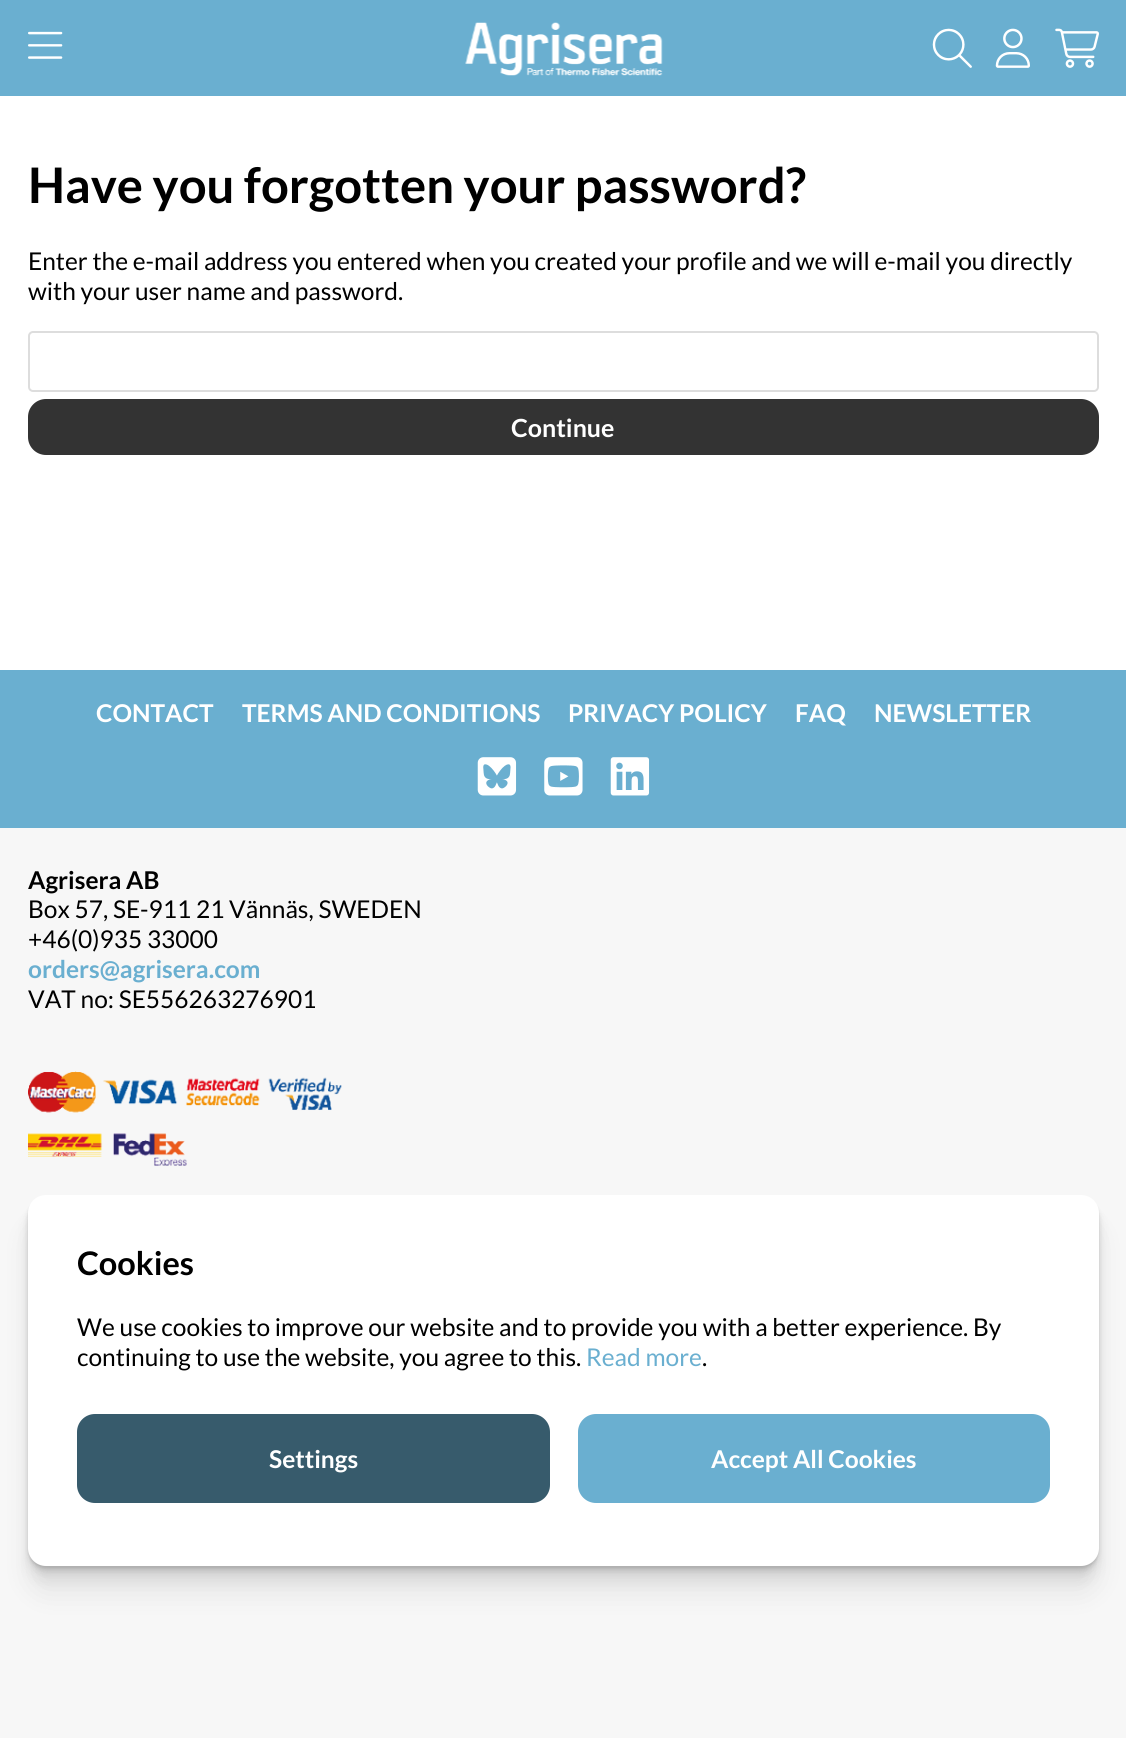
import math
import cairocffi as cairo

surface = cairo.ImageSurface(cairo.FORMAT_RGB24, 1126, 1738)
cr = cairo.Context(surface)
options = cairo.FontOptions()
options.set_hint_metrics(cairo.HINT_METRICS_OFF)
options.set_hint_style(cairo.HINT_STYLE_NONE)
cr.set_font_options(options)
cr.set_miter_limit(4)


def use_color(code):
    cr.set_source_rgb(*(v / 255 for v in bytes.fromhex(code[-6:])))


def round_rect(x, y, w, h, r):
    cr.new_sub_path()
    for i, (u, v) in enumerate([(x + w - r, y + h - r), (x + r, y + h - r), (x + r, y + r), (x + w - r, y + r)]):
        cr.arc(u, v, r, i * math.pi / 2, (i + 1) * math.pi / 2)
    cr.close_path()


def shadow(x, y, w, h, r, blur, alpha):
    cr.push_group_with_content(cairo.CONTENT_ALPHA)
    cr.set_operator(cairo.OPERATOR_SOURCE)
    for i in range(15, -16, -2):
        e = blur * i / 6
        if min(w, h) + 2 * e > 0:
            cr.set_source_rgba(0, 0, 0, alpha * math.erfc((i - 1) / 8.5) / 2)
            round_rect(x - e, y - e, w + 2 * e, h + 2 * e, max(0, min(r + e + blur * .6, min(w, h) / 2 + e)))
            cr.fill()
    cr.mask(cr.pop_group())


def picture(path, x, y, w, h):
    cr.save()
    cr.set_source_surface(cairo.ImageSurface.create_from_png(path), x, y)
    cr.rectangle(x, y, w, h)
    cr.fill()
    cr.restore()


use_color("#ffffff")
cr.paint()
use_color("#6aafd0")
cr.rectangle(0, 0, 1126, 96)
cr.fill()
picture("img1.png", 28, 31, 35, 28)
picture("img2.png", 465, 22, 198, 54)
picture("img3.png", 932, 28, 40, 40)
picture("img4.png", 995, 28, 35, 40)
picture("img5.png", 1055, 28, 44, 40)
cr.select_font_face("Lato", cairo.FONT_SLANT_NORMAL, cairo.FONT_WEIGHT_BOLD)
cr.set_font_size(49)
use_color("#000000")
cr.move_to(28, 203)
cr.show_text("Have you forgotten your password?")
cr.select_font_face("Lato")
cr.set_font_size(24.5)
cr.move_to(28, 270)
cr.show_text("Enter the e-mail address you entered when you created your profile and we will e-mail you directly")
cr.move_to(28, 300)
cr.show_text("with your user name and password.")
round_rect(29, 332, 1069, 59, 4)
use_color("#dddddd")
cr.stroke()
use_color("#333333")
round_rect(28, 399, 1071, 56, 18)
cr.fill()
cr.select_font_face("Lato", cairo.FONT_SLANT_NORMAL, cairo.FONT_WEIGHT_BOLD)
cr.set_font_size(25)
use_color("#ffffff")
cr.move_to(511, 437)
cr.show_text("Continue")
use_color("#f7f7f7")
cr.rectangle(0, 828, 1126, 910)
cr.fill()
use_color("#6aafd0")
cr.rectangle(0, 670, 1126, 158)
cr.fill()
cr.set_font_size(24.5)
use_color("#ffffff")
cr.move_to(96, 722)
cr.show_text("CONTACT")
cr.move_to(242, 722)
cr.show_text("TERMS AND CONDITIONS")
cr.move_to(568, 722)
cr.show_text("PRIVACY POLICY")
cr.move_to(795, 722)
cr.show_text("FAQ")
cr.move_to(874, 722)
cr.show_text("NEWSLETTER")
picture("img6.png", 477, 757, 40, 39)
picture("img7.png", 544, 757, 39, 39)
picture("img8.png", 610, 757, 40, 39)
use_color("#000000")
cr.move_to(28, 889)
cr.show_text("Agrisera AB")
cr.select_font_face("Lato")
cr.move_to(28, 918)
cr.show_text("Box 57, SE-911 21 Vännäs, SWEDEN")
cr.move_to(28, 948)
cr.show_text("+46(0)935 33000")
cr.select_font_face("Lato", cairo.FONT_SLANT_NORMAL, cairo.FONT_WEIGHT_BOLD)
use_color("#6aafd0")
cr.move_to(28, 978)
cr.show_text("orders@agrisera.com")
cr.select_font_face("Lato")
use_color("#000000")
cr.move_to(28, 1008)
cr.show_text("VAT no: SE556263276901")
picture("img9.png", 28, 1071, 314, 95)
use_color("#000000")
shadow(28, 1223, 1071, 371, 18, 14, 0.07)
shadow(28, 1209, 1071, 371, 18, 7, 0.07)
shadow(28, 1202, 1071, 371, 18, 3.5, 0.07)
shadow(28, 1199, 1071, 371, 18, 2, 0.07)
shadow(28, 1197, 1071, 371, 18, 1, 0.07)
use_color("#ffffff")
round_rect(28, 1195, 1071, 371, 18)
cr.fill()
cr.select_font_face("Lato", cairo.FONT_SLANT_NORMAL, cairo.FONT_WEIGHT_BOLD)
cr.set_font_size(32.5)
use_color("#000000")
cr.move_to(77, 1275)
cr.show_text("Cookies")
cr.select_font_face("Lato")
cr.set_font_size(24.5)
cr.move_to(77, 1336)
cr.show_text("We use cookies to improve our website and to provide you with a better experience. By")
cr.move_to(77, 1366)
cr.show_text("continuing to use the website, you agree to this.")
use_color("#6aafd0")
cr.move_to(586, 1366)
cr.show_text("Read more")
use_color("#000000")
cr.move_to(702, 1366)
cr.show_text(".")
use_color("#375b6c")
round_rect(77, 1414, 473, 89, 18)
cr.fill()
cr.select_font_face("Lato", cairo.FONT_SLANT_NORMAL, cairo.FONT_WEIGHT_BOLD)
use_color("#ffffff")
cr.move_to(269, 1468)
cr.show_text("Settings")
use_color("#6aafd0")
round_rect(578, 1414, 472, 89, 18)
cr.fill()
use_color("#ffffff")
cr.move_to(711, 1468)
cr.show_text("Accept All Cookies")
surface.write_to_png("result.png")
